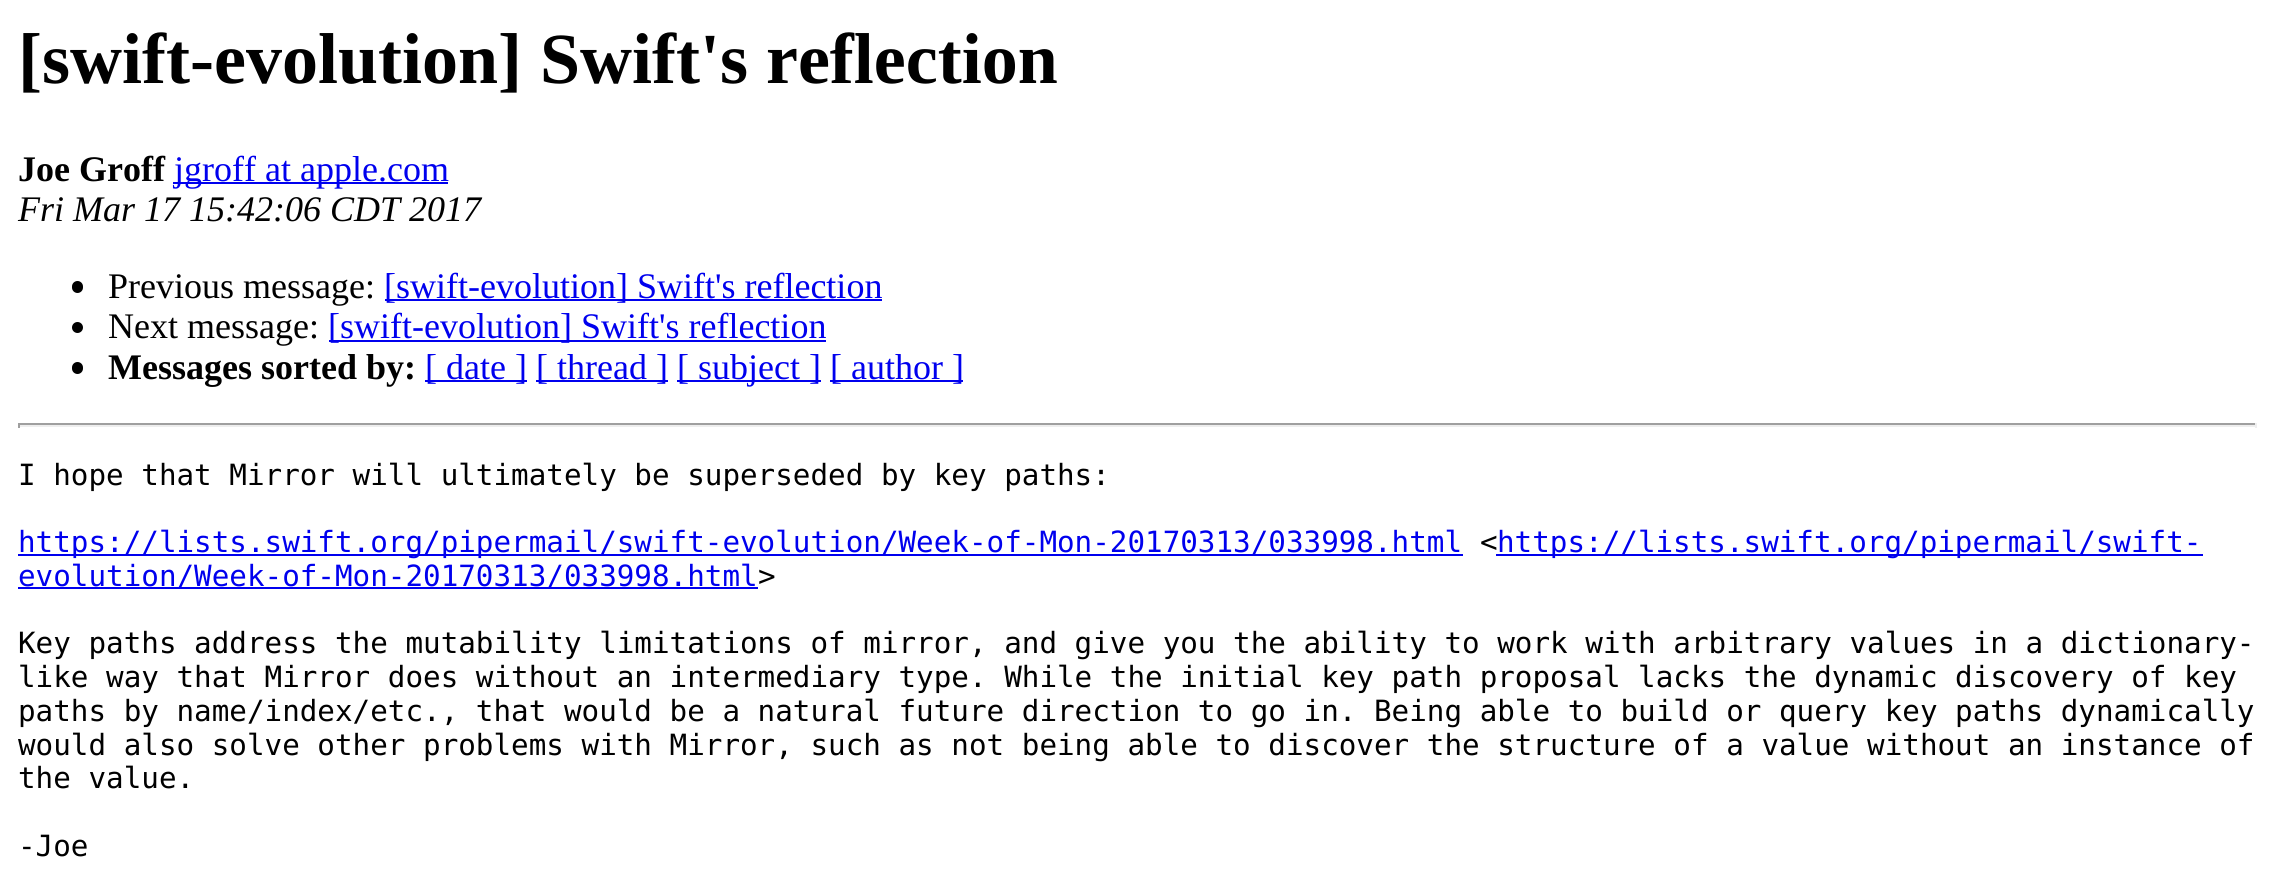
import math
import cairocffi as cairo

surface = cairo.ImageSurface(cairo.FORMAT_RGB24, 2274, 882)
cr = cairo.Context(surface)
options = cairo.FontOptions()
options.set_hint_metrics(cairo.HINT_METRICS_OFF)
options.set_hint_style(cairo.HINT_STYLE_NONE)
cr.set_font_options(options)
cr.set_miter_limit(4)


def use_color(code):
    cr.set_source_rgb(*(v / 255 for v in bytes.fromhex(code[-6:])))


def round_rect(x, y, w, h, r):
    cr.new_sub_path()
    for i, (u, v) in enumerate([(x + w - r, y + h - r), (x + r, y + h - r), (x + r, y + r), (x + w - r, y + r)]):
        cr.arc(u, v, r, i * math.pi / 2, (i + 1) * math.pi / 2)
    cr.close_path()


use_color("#ffffff")
cr.paint()
cr.select_font_face("Liberation Serif", cairo.FONT_SLANT_NORMAL, cairo.FONT_WEIGHT_BOLD)
cr.set_font_size(72)
use_color("#000000")
cr.move_to(18, 83)
cr.show_text("[swift-evolution] Swift's reflection")
cr.set_font_size(36)
cr.move_to(18, 181)
cr.show_text("Joe Groff")
use_color("#0000ee")
cr.rectangle(173, 182, 275, 2)
cr.fill()
cr.select_font_face("Liberation Serif")
cr.move_to(174, 181)
cr.show_text("jgroff at apple.com")
cr.select_font_face("Liberation Serif", cairo.FONT_SLANT_ITALIC)
use_color("#000000")
cr.move_to(18, 221)
cr.show_text("Fri Mar 17 15:42:06 CDT 2017")
round_rect(72, 281, 11, 12, 5.5)
cr.fill()
cr.select_font_face("Liberation Serif")
cr.move_to(108, 298)
cr.show_text("Previous message:")
use_color("#0000ee")
cr.rectangle(385, 299, 497, 2)
cr.fill()
cr.move_to(384, 298)
cr.show_text("[swift-evolution] Swift's reflection")
use_color("#000000")
cr.new_path()
cr.arc(77.5, 327.5, 5.5, 0, 2 * math.pi)
cr.fill()
cr.move_to(108, 338)
cr.show_text("Next message:")
use_color("#0000ee")
cr.rectangle(329, 340, 497, 2)
cr.fill()
cr.move_to(328, 338)
cr.show_text("[swift-evolution] Swift's reflection")
use_color("#000000")
round_rect(72, 362, 11, 12, 5.5)
cr.fill()
cr.select_font_face("Liberation Serif", cairo.FONT_SLANT_NORMAL, cairo.FONT_WEIGHT_BOLD)
cr.move_to(108, 379)
cr.show_text("Messages sorted by:")
use_color("#0000ee")
cr.rectangle(425, 380, 102, 2)
cr.fill()
cr.select_font_face("Liberation Serif")
cr.move_to(425, 379)
cr.show_text("[ date ]")
cr.rectangle(536, 380, 132, 2)
cr.fill()
cr.move_to(536, 379)
cr.show_text("[ thread ]")
cr.rectangle(677, 380, 144, 2)
cr.fill()
cr.move_to(677, 379)
cr.show_text("[ subject ]")
cr.rectangle(830, 380, 133, 2)
cr.fill()
cr.move_to(830, 379)
cr.show_text("[ author ]")
use_color("#9f9f9f")
cr.rectangle(18, 423, 2239, 2)
cr.fill()
use_color("#eeeeee")
cr.rectangle(2255, 423, 2, 5)
cr.fill()
cr.rectangle(18, 425, 2239, 2)
cr.fill()
use_color("#9f9f9f")
cr.rectangle(18, 423, 2, 5)
cr.fill()
cr.select_font_face("DejaVu Sans Mono")
cr.set_font_size(29.25)
use_color("#000000")
cr.move_to(18, 485)
cr.show_text("I hope that Mirror will ultimately be superseded by key paths:")
use_color("#0000ee")
cr.rectangle(18, 554, 1445, 2)
cr.fill()
cr.move_to(18, 552)
cr.show_text("https://lists.swift.org/pipermail/swift-evolution/Week-of-Mon-20170313/033998.html")
use_color("#000000")
cr.move_to(1480, 552)
cr.show_text("<")
use_color("#0000ee")
cr.rectangle(1496, 554, 707, 2)
cr.fill()
cr.move_to(1497, 552)
cr.show_text("https://lists.swift.org/pipermail/swift-")
cr.rectangle(18, 587, 740, 2)
cr.fill()
cr.move_to(18, 586)
cr.show_text("evolution/Week-of-Mon-20170313/033998.html")
use_color("#000000")
cr.move_to(758, 586)
cr.show_text(">")
cr.move_to(18, 653)
cr.show_text("Key paths address the mutability limitations of mirror, and give you the ability to work with arbitrary values in a dictionary-")
cr.move_to(18, 687)
cr.show_text("like way that Mirror does without an intermediary type. While the initial key path proposal lacks the dynamic discovery of key")
cr.move_to(18, 721)
cr.show_text("paths by name/index/etc., that would be a natural future direction to go in. Being able to build or query key paths dynamically")
cr.move_to(18, 755)
cr.show_text("would also solve other problems with Mirror, such as not being able to discover the structure of a value without an instance of")
cr.move_to(18, 788)
cr.show_text("the value.")
cr.move_to(18, 856)
cr.show_text("-Joe")
surface.write_to_png("result.png")
